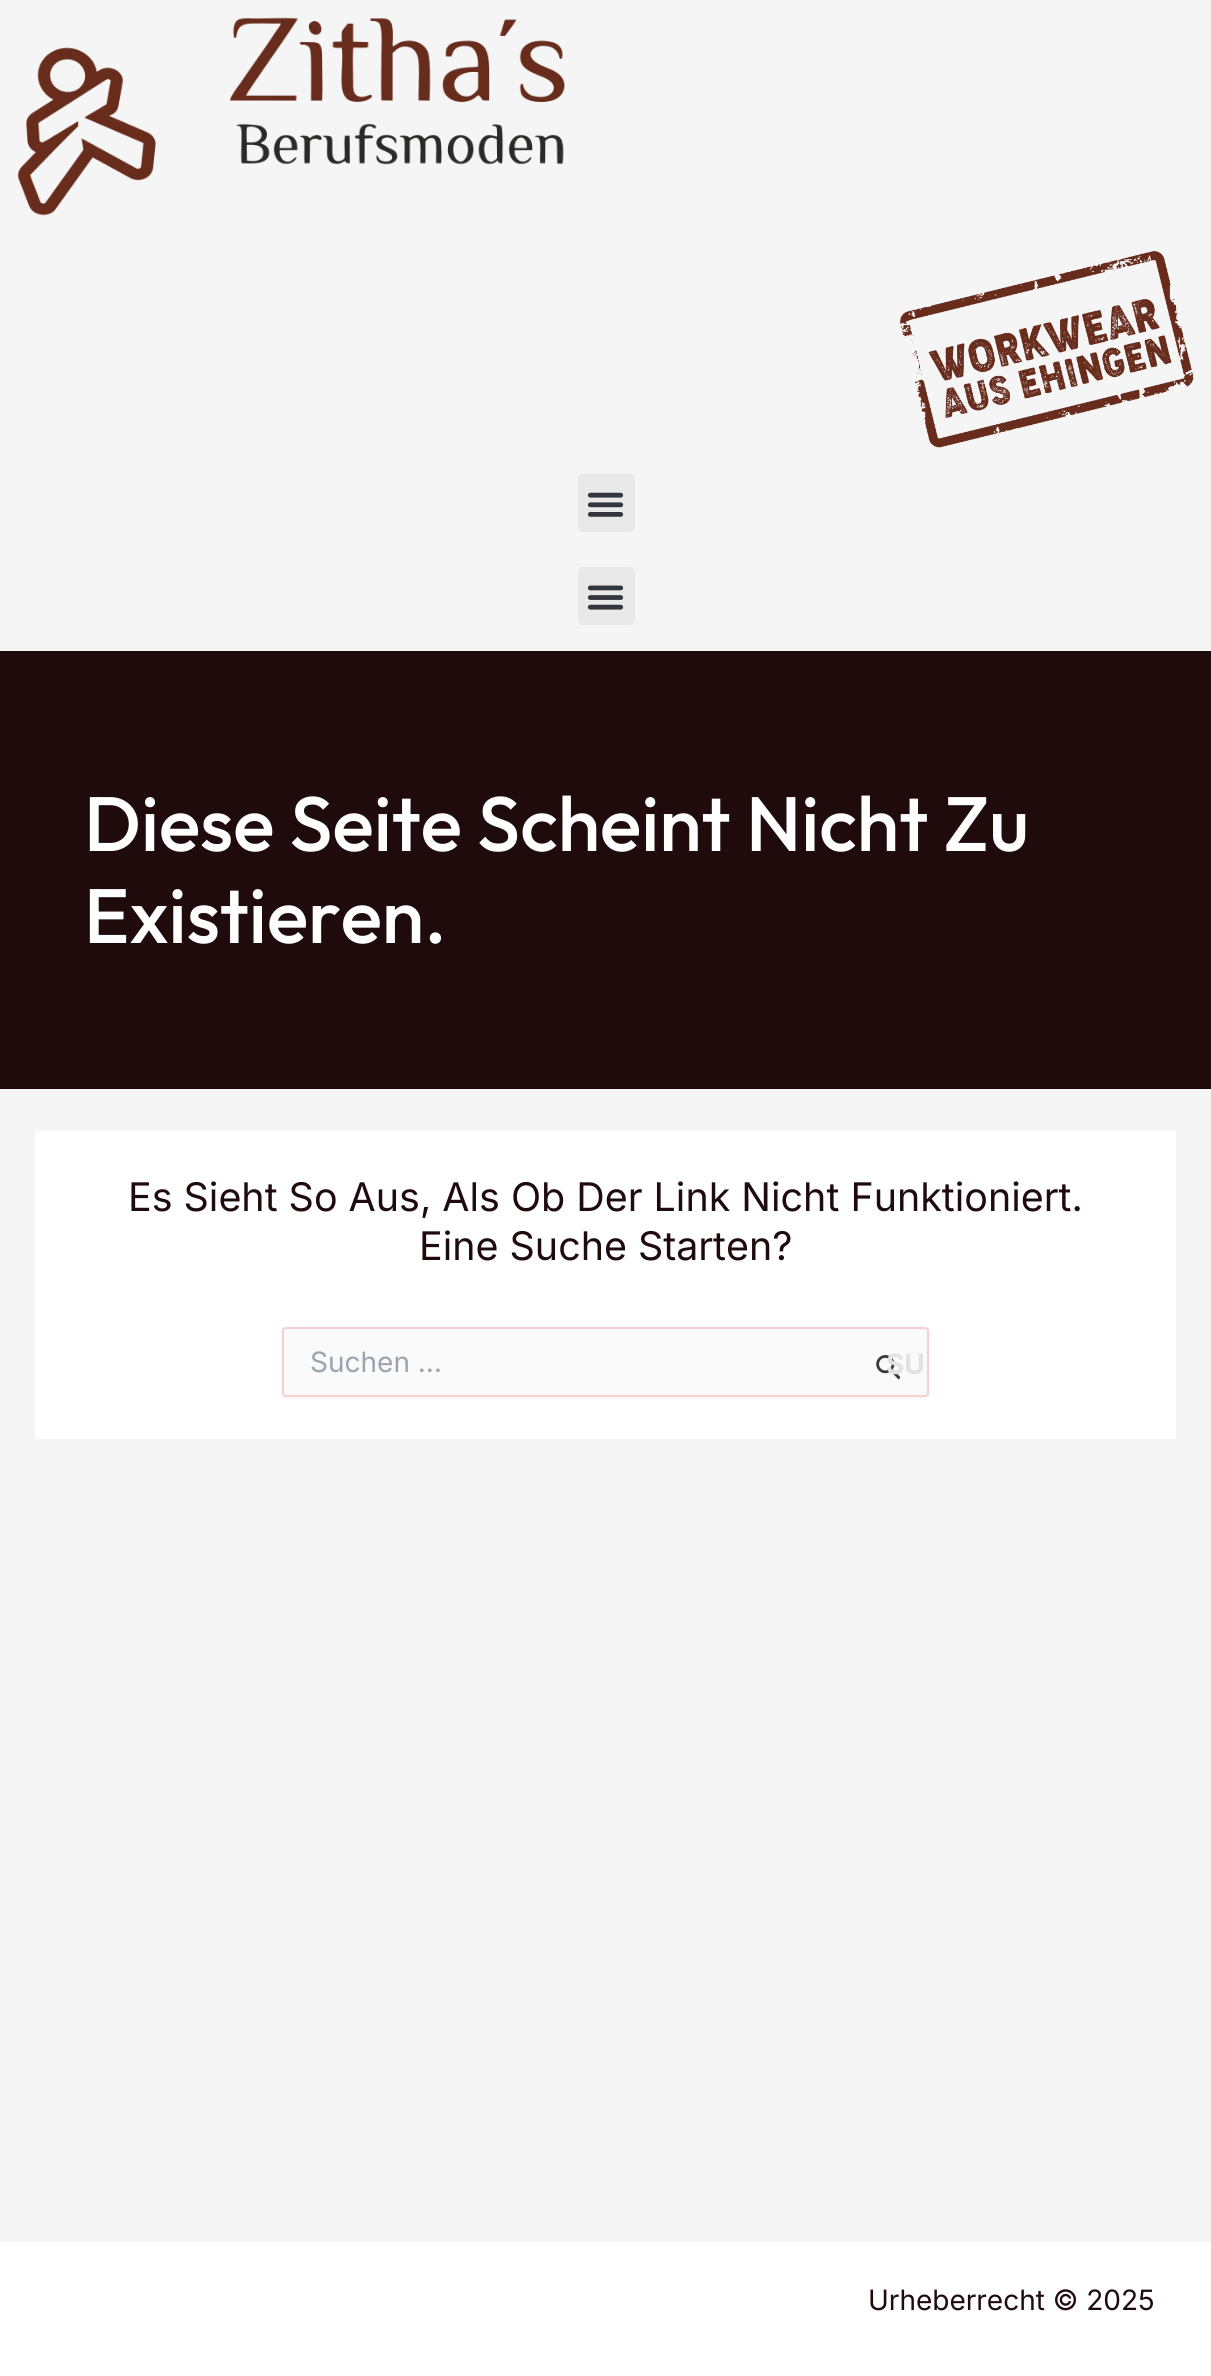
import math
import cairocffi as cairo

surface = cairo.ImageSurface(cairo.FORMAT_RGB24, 1211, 2376)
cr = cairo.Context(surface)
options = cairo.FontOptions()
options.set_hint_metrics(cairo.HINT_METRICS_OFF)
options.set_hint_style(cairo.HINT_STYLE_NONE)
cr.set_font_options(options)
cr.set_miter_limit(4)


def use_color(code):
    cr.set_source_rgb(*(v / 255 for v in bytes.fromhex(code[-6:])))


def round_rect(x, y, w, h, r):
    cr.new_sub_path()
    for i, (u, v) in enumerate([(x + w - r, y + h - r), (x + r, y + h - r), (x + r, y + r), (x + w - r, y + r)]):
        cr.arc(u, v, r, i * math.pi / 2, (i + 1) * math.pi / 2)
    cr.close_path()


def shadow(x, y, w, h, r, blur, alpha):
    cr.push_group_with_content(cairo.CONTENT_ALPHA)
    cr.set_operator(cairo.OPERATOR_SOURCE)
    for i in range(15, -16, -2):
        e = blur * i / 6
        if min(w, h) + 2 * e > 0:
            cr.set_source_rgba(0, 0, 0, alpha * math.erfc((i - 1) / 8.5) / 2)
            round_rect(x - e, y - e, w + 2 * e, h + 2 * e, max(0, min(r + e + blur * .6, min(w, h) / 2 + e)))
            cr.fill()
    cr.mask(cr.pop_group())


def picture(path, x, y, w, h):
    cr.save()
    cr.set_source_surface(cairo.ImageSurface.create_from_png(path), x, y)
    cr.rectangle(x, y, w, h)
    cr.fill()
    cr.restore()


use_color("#f5f5f5")
cr.paint()
picture("img1.png", 17, 17, 548, 199)
picture("img2.png", 900, 251, 294, 197)
use_color("#e9e9e9")
round_rect(578, 474, 57, 58, 5)
cr.fill()
picture("img3.png", 587, 492, 37, 25)
round_rect(578, 567, 57, 58, 5)
cr.fill()
picture("img4.png", 587, 585, 37, 25)
use_color("#1f0a0c")
cr.rectangle(0, 651, 1211, 438)
cr.fill()
cr.select_font_face("Outfit Thin")
cr.set_font_size(77)
use_color("#ffffff")
cr.move_to(84, 851)
cr.show_text("Diese Seite Scheint Nicht Zu")
cr.move_to(84, 943)
cr.show_text("Existieren.")
cr.rectangle(35, 1131, 1141, 308)
cr.fill()
cr.select_font_face("Inter")
cr.set_font_size(39.4)
use_color("#1f0a0c")
cr.move_to(128, 1211)
cr.show_text("Es Sieht So Aus, Als Ob Der Link Nicht Funktioniert.")
cr.move_to(419, 1260)
cr.show_text("Eine Suche Starten?")
use_color("#000000")
shadow(282, 1328, 647, 70, 4, 2, 0.05)
use_color("#fafafa")
round_rect(283, 1328, 645, 68, 3)
cr.fill_preserve()
use_color("#f7d0d1")
cr.stroke()
cr.set_font_size(28)
use_color("#9ca3af")
cr.move_to(310, 1372)
cr.show_text("Suchen …")
picture("img5.png", 876, 1355, 24, 25)
cr.select_font_face("Inter", cairo.FONT_SLANT_NORMAL, cairo.FONT_WEIGHT_BOLD)
use_color("#e3e1e1")
cr.move_to(886, 1374)
cr.show_text("SU")
use_color("#ffffff")
cr.rectangle(0, 2242, 1211, 134)
cr.fill()
cr.select_font_face("Inter")
use_color("#1f0a0c")
cr.move_to(868, 2310)
cr.show_text("Urheberrecht © 2025")
surface.write_to_png("result.png")
